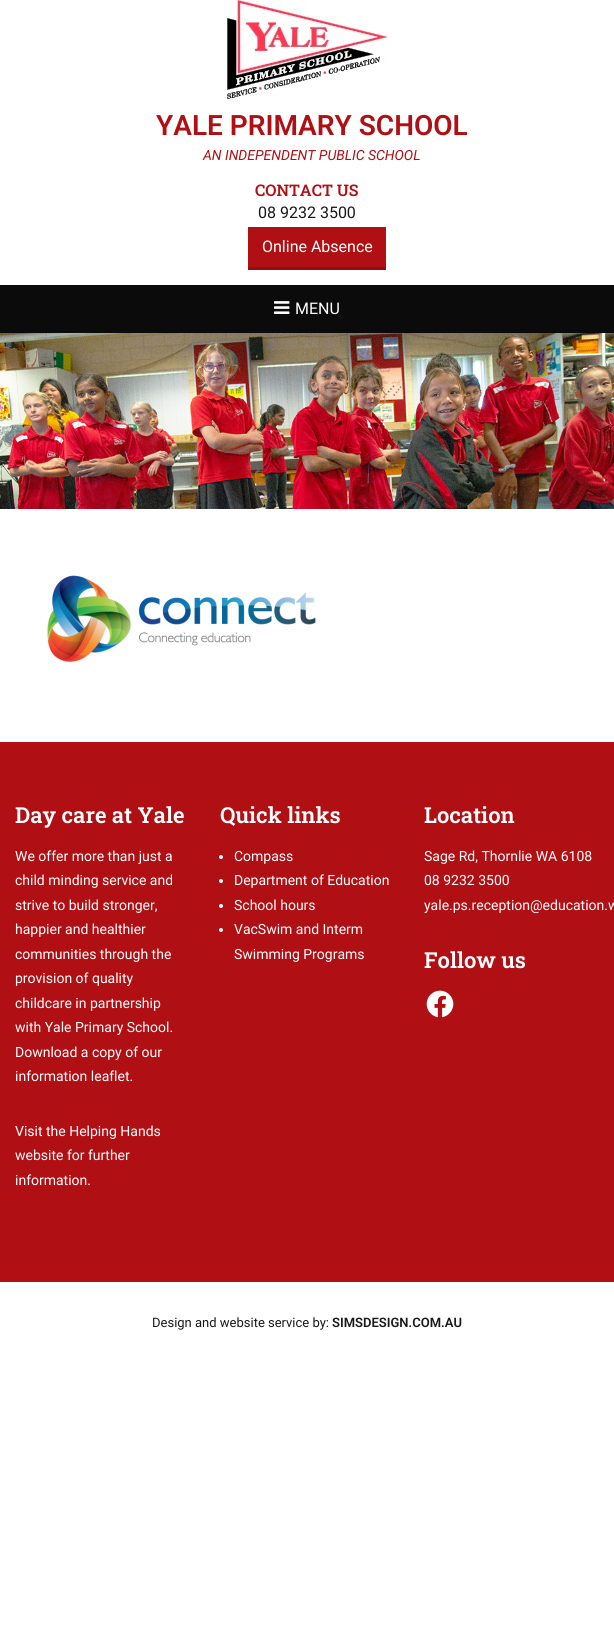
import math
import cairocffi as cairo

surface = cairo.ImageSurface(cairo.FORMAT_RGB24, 614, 1651)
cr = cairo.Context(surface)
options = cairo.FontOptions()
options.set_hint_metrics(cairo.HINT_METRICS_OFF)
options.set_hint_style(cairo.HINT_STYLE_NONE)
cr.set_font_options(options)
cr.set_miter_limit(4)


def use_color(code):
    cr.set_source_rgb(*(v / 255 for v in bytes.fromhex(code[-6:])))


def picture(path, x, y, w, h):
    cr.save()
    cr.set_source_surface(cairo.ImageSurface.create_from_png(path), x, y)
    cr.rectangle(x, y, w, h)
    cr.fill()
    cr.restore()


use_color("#ffffff")
cr.paint()
picture("img1.png", 227, 0, 161, 99)
cr.select_font_face("Roboto SemiBold")
cr.set_font_size(28)
use_color("#b00f14")
cr.move_to(156, 135)
cr.show_text("YALE PRIMARY SCHOOL")
cr.select_font_face("Roboto", cairo.FONT_SLANT_ITALIC)
cr.set_font_size(14)
cr.move_to(203, 160)
cr.show_text("AN INDEPENDENT PUBLIC SCHOOL")
cr.select_font_face("Roboto Slab SemiBold")
cr.set_font_size(16)
cr.move_to(255, 196)
cr.show_text("CONTACT US")
cr.select_font_face("Roboto")
use_color("#1a1a1a")
cr.move_to(258, 218)
cr.show_text("08 9232 3500")
use_color("#b00f14")
cr.rectangle(248, 227, 138, 40)
cr.fill()
use_color("#8f1014")
cr.rectangle(248, 267, 138, 3)
cr.fill()
use_color("#ffffff")
cr.move_to(262, 252)
cr.show_text("Online Absence")
use_color("#0b0b0b")
cr.rectangle(0, 285, 614, 48)
cr.fill()
picture("img2.png", 274, 301, 16, 13)
use_color("#ffffff")
cr.move_to(295, 314)
cr.show_text("MENU")
picture("img3.png", 0, 333, 614, 176)
picture("img4.png", 47, 575, 269, 87)
use_color("#b00f14")
cr.rectangle(0, 742, 614, 540)
cr.fill()
cr.select_font_face("Roboto Slab SemiBold")
cr.set_font_size(22)
use_color("#ffffff")
cr.move_to(15, 823)
cr.show_text("Day care at Yale")
cr.select_font_face("Roboto")
cr.set_font_size(14)
cr.move_to(15, 861)
cr.show_text("We offer more than just a")
cr.move_to(15, 885)
cr.show_text("child minding service and")
cr.move_to(15, 910)
cr.show_text("strive to build stronger,")
cr.move_to(15, 934)
cr.show_text("happier and healthier")
cr.move_to(15, 959)
cr.show_text("communities through the")
cr.move_to(15, 983)
cr.show_text("provision of quality")
cr.move_to(15, 1008)
cr.show_text("childcare in partnership")
cr.move_to(15, 1032)
cr.show_text("with Yale Primary School.")
cr.move_to(15, 1057)
cr.show_text("Download a copy of our")
cr.move_to(15, 1081)
cr.show_text("information leaflet.")
cr.move_to(15, 1136)
cr.show_text("Visit the Helping Hands")
cr.move_to(15, 1160)
cr.show_text("website for further")
cr.move_to(15, 1185)
cr.show_text("information.")
cr.select_font_face("Roboto Slab SemiBold")
cr.set_font_size(22)
cr.move_to(220, 823)
cr.show_text("Quick links")
cr.new_path()
cr.arc(221, 857, 2, 0, 2 * math.pi)
cr.fill()
cr.select_font_face("Roboto")
cr.set_font_size(14)
cr.move_to(234, 861)
cr.show_text("Compass")
cr.new_path()
cr.arc(221, 881, 2, 0, 2 * math.pi)
cr.fill()
cr.move_to(234, 885)
cr.show_text("Department of Education")
cr.new_path()
cr.arc(221, 906, 2, 0, 2 * math.pi)
cr.fill()
cr.move_to(234, 910)
cr.show_text("School hours")
cr.new_path()
cr.arc(221, 930, 2, 0, 2 * math.pi)
cr.fill()
cr.move_to(234, 934)
cr.show_text("VacSwim and Interm")
cr.move_to(234, 959)
cr.show_text("Swimming Programs")
cr.select_font_face("Roboto Slab SemiBold")
cr.set_font_size(22)
cr.move_to(424, 823)
cr.show_text("Location")
cr.select_font_face("Roboto")
cr.set_font_size(14)
cr.move_to(424, 861)
cr.show_text("Sage Rd, Thornlie WA 6108")
cr.move_to(424, 885)
cr.show_text("08 9232 3500")
cr.move_to(424, 910)
cr.show_text("yale.ps.reception@education.w")
cr.select_font_face("Roboto Slab SemiBold")
cr.set_font_size(22)
cr.move_to(424, 968)
cr.show_text("Follow us")
picture("img5.png", 426, 990, 28, 28)
cr.select_font_face("Roboto")
cr.set_font_size(13)
use_color("#1a1a1a")
cr.move_to(152, 1327)
cr.show_text("Design and website service by:")
cr.select_font_face("Roboto SemiBold")
cr.move_to(332, 1327)
cr.show_text("SIMSDESIGN.COM.AU")
surface.write_to_png("result.png")
